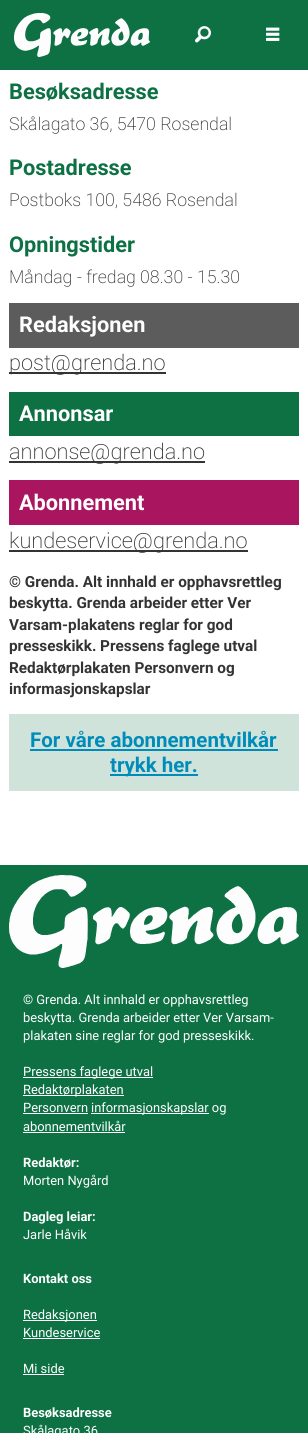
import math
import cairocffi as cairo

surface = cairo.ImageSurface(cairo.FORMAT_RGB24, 308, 1433)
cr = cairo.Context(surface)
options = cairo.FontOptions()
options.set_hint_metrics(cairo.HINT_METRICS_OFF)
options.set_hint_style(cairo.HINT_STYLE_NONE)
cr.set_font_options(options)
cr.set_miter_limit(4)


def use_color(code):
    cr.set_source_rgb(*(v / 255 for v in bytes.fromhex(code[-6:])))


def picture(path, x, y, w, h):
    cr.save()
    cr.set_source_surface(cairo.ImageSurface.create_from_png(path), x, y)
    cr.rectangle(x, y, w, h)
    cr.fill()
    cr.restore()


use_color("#ffffff")
cr.paint()
use_color("#0d7144")
cr.rectangle(0, 0, 308, 70)
cr.fill()
picture("img1.png", 14, 13, 136, 44)
picture("img2.png", 195, 26, 16, 17)
picture("img3.png", 266, 27, 14, 14)
cr.select_font_face("Roboto", cairo.FONT_SLANT_NORMAL, cairo.FONT_WEIGHT_BOLD)
cr.set_font_size(21.75)
cr.move_to(9, 99)
cr.show_text("Besøksadresse")
cr.select_font_face("Roboto ExtraLight")
cr.set_font_size(17.75)
use_color("#333333")
cr.move_to(9, 130)
cr.show_text("Skålagato 36, 5470 Rosendal")
cr.select_font_face("Roboto", cairo.FONT_SLANT_NORMAL, cairo.FONT_WEIGHT_BOLD)
cr.set_font_size(21.75)
use_color("#0d7144")
cr.move_to(9, 175)
cr.show_text("Postadresse")
cr.select_font_face("Roboto ExtraLight")
cr.set_font_size(17.75)
use_color("#333333")
cr.move_to(9, 206)
cr.show_text("Postboks 100, 5486 Rosendal")
cr.select_font_face("Roboto", cairo.FONT_SLANT_NORMAL, cairo.FONT_WEIGHT_BOLD)
cr.set_font_size(21.75)
use_color("#0d7144")
cr.move_to(9, 252)
cr.show_text("Opningstider")
cr.select_font_face("Roboto ExtraLight")
cr.set_font_size(17.75)
use_color("#333333")
cr.move_to(9, 283)
cr.show_text("Måndag - fredag 08.30 - 15.30")
use_color("#5c5c5c")
cr.rectangle(9, 303, 290, 45)
cr.fill()
cr.select_font_face("Roboto", cairo.FONT_SLANT_NORMAL, cairo.FONT_WEIGHT_BOLD)
cr.set_font_size(21.75)
use_color("#ffffff")
cr.move_to(19, 332)
cr.show_text("Redaksjonen")
use_color("#333333")
cr.rectangle(9, 372, 157, 2)
cr.fill()
cr.select_font_face("Roboto ExtraLight")
cr.move_to(9, 370)
cr.show_text("post@grenda.no")
use_color("#0d7144")
cr.rectangle(9, 392, 290, 44)
cr.fill()
cr.select_font_face("Roboto", cairo.FONT_SLANT_NORMAL, cairo.FONT_WEIGHT_BOLD)
use_color("#ffffff")
cr.move_to(19, 421)
cr.show_text("Annonsar")
use_color("#333333")
cr.rectangle(9, 461, 196, 2)
cr.fill()
cr.select_font_face("Roboto ExtraLight")
cr.move_to(9, 459)
cr.show_text("annonse@grenda.no")
use_color("#aa155f")
cr.rectangle(9, 480, 290, 45)
cr.fill()
cr.select_font_face("Roboto", cairo.FONT_SLANT_NORMAL, cairo.FONT_WEIGHT_BOLD)
use_color("#ffffff")
cr.move_to(19, 510)
cr.show_text("Abonnement")
use_color("#333333")
cr.rectangle(9, 550, 239, 2)
cr.fill()
cr.select_font_face("Roboto ExtraLight")
cr.move_to(9, 548)
cr.show_text("kundeservice@grenda.no")
cr.select_font_face("Roboto", cairo.FONT_SLANT_NORMAL, cairo.FONT_WEIGHT_BOLD)
cr.set_font_size(15.3)
cr.move_to(9, 587)
cr.show_text("© Grenda. Alt innhald er opphavsrettleg")
cr.move_to(9, 608)
cr.show_text("beskytta. Grenda arbeider etter Ver")
cr.move_to(9, 630)
cr.show_text("Varsam-plakatens reglar for god")
cr.move_to(9, 651)
cr.show_text("presseskikk. Pressens faglege utval")
cr.move_to(9, 673)
cr.show_text("Redaktørplakaten Personvern og")
cr.move_to(9, 694)
cr.show_text("informasjonskapslar")
use_color("#cfe3da")
cr.rectangle(9, 714, 290, 77)
cr.fill()
cr.set_font_size(20.5)
use_color("#008cba")
cr.move_to(30, 747)
cr.show_text("For våre abonnementvilkår")
cr.rectangle(30, 749, 248, 2)
cr.fill()
cr.rectangle(110, 774, 88, 2)
cr.fill()
cr.move_to(110, 772)
cr.show_text("trykk her.")
use_color("#0d7144")
cr.rectangle(0, 865, 308, 568)
cr.fill()
picture("img4.png", 9, 875, 290, 93)
cr.select_font_face("Roboto")
cr.set_font_size(12.9)
use_color("#ffffff")
cr.move_to(23, 1004)
cr.show_text("© Grenda. Alt innhald er opphavsrettleg")
cr.move_to(23, 1022)
cr.show_text("beskytta. Grenda arbeider etter Ver Varsam-")
cr.move_to(23, 1040)
cr.show_text("plakaten sine reglar for god presseskikk.")
cr.rectangle(23, 1077, 130, 1)
cr.fill()
cr.move_to(23, 1076)
cr.show_text("Pressens faglege utval")
cr.rectangle(23, 1095, 101, 1)
cr.fill()
cr.move_to(23, 1094)
cr.show_text("Redaktørplakaten")
cr.move_to(23, 1112)
cr.show_text("Personvern")
cr.rectangle(23, 1113, 65, 1)
cr.fill()
cr.rectangle(91, 1113, 118, 1)
cr.fill()
cr.move_to(91, 1112)
cr.show_text("informasjonskapslar og")
cr.move_to(23, 1131)
cr.show_text("abonnementvilkår")
cr.rectangle(23, 1132, 102, 1)
cr.fill()
cr.select_font_face("Roboto", cairo.FONT_SLANT_NORMAL, cairo.FONT_WEIGHT_BOLD)
cr.move_to(23, 1167)
cr.show_text("Redaktør:")
cr.select_font_face("Roboto")
cr.move_to(23, 1185)
cr.show_text("Morten Nygård")
cr.select_font_face("Roboto", cairo.FONT_SLANT_NORMAL, cairo.FONT_WEIGHT_BOLD)
cr.move_to(23, 1221)
cr.show_text("Dagleg leiar:")
cr.select_font_face("Roboto")
cr.move_to(23, 1239)
cr.show_text("Jarle Håvik")
cr.select_font_face("Roboto", cairo.FONT_SLANT_NORMAL, cairo.FONT_WEIGHT_BOLD)
cr.move_to(23, 1283)
cr.show_text("Kontakt oss")
cr.rectangle(23, 1320, 74, 1)
cr.fill()
cr.select_font_face("Roboto")
cr.move_to(23, 1319)
cr.show_text("Redaksjonen")
cr.move_to(23, 1337)
cr.show_text("Kundeservice")
cr.rectangle(23, 1338, 77, 1)
cr.fill()
cr.move_to(23, 1373)
cr.show_text("Mi side")
cr.rectangle(23, 1374, 41, 1)
cr.fill()
cr.select_font_face("Roboto", cairo.FONT_SLANT_NORMAL, cairo.FONT_WEIGHT_BOLD)
cr.move_to(23, 1417)
cr.show_text("Besøksadresse")
cr.select_font_face("Roboto")
cr.move_to(23, 1435)
cr.show_text("Skålagato 36")
surface.write_to_png("result.png")
